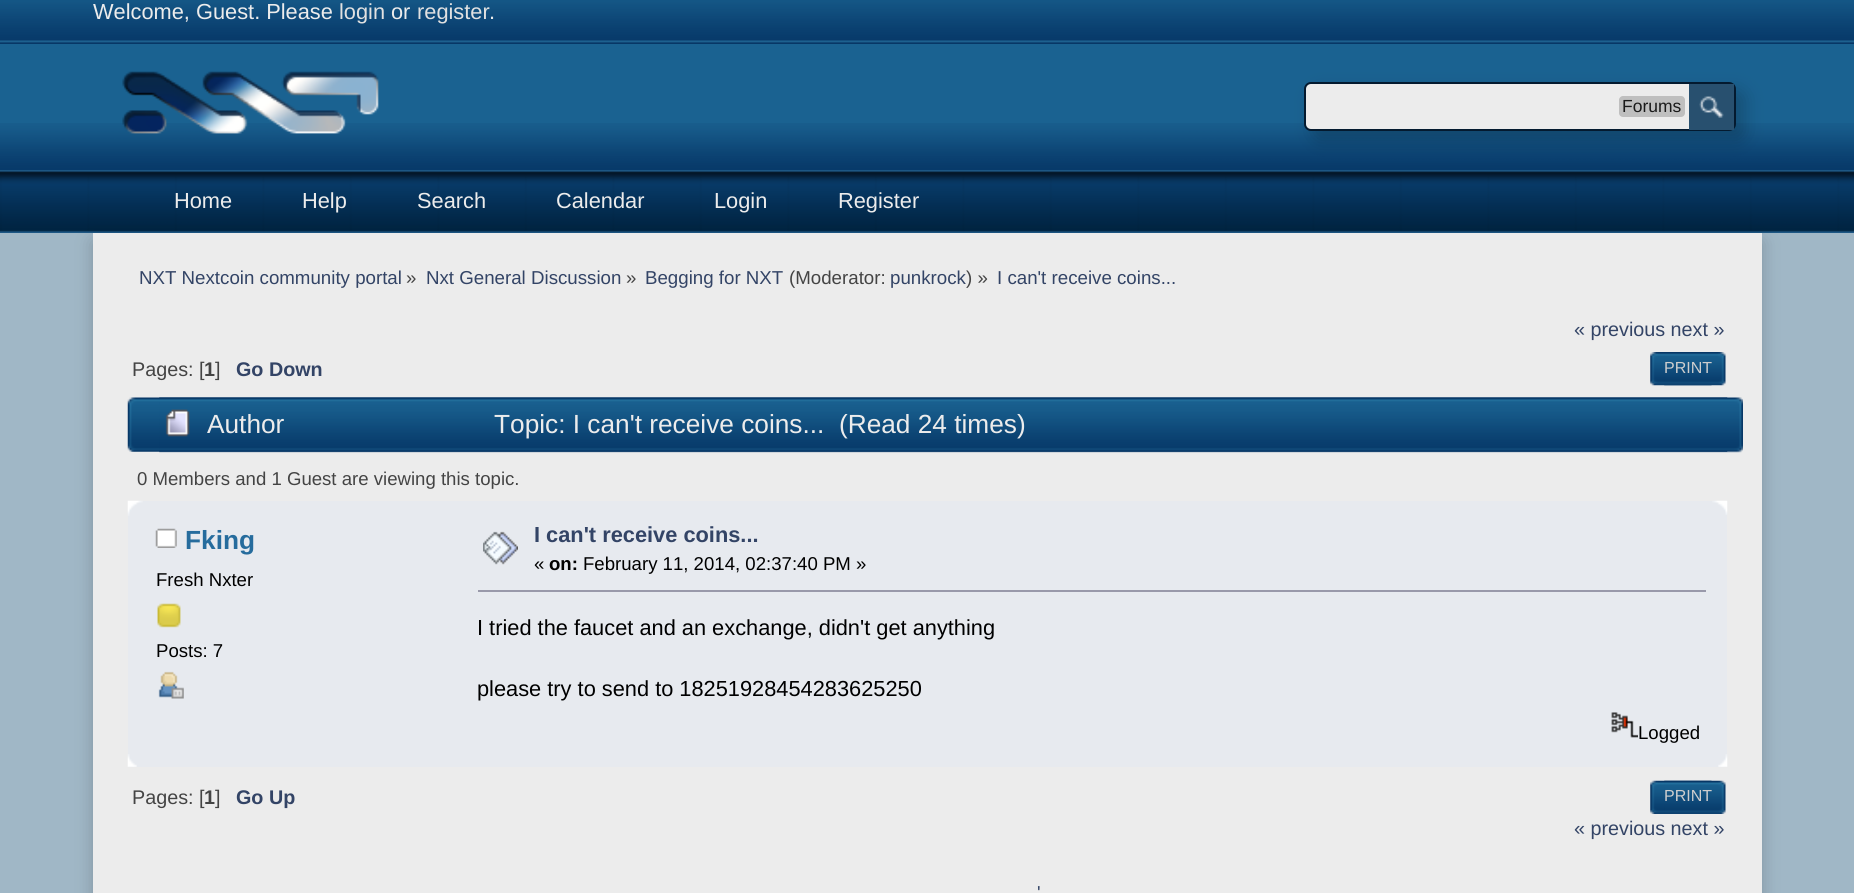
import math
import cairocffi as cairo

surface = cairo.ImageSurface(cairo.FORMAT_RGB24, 1854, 893)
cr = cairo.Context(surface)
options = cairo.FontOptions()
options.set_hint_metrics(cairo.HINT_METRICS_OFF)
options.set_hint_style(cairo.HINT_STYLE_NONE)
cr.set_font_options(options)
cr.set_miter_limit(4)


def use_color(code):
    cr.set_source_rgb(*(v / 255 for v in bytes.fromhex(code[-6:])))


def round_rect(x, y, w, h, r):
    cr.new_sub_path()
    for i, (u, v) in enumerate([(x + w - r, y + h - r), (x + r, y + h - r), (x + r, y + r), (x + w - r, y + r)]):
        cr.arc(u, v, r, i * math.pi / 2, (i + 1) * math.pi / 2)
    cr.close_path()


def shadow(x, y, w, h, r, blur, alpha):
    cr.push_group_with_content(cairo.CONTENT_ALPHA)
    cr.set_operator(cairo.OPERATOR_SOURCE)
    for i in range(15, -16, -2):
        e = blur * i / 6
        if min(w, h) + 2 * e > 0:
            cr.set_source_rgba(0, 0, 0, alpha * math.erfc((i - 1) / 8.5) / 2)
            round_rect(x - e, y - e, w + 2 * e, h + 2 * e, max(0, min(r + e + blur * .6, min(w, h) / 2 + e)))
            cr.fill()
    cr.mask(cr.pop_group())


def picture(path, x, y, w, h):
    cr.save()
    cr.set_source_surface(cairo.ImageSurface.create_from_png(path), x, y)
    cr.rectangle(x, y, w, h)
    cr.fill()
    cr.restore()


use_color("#a0b7c6")
cr.paint()
picture("img1.png", 0, 0, 1854, 44)
cr.select_font_face("Liberation Sans")
cr.set_font_size(21.8)
use_color("#ececec")
cr.move_to(93, 19)
cr.show_text("Welcome, Guest. Please")
use_color("#e1e1e1")
cr.move_to(339, 19)
cr.show_text("login")
use_color("#ececec")
cr.move_to(391, 19)
cr.show_text("or")
use_color("#e1e1e1")
cr.move_to(417, 19)
cr.show_text("register")
use_color("#ececec")
cr.move_to(489, 19)
cr.show_text(".")
use_color("#1a6291")
cr.rectangle(0, 44, 1854, 79)
cr.fill()
picture("img2.png", 0, 123, 1854, 47)
picture("img3.png", 122, 71, 257, 63)
use_color("#000000")
shadow(1313, 91, 432, 49, 7, 9, 0.2)
use_color("#ececec")
round_rect(1305, 83, 430, 47, 6)
cr.fill_preserve()
use_color("#041a2f")
cr.stroke()
use_color("#bfbfbf")
round_rect(1619, 96, 66, 21, 4)
cr.fill()
cr.set_font_size(17.5)
use_color("#1a1a1a")
cr.move_to(1622, 112)
cr.show_text("Forums")
use_color("#28506f")
cr.rectangle(1689, 84, 45, 46)
cr.fill()
picture("img4.png", 1699, 96, 25, 22)
picture("img5.png", 0, 170, 1854, 63)
cr.set_font_size(21.8)
use_color("#ececec")
cr.move_to(174, 208)
cr.show_text("Home")
cr.move_to(302, 208)
cr.show_text("Help")
cr.move_to(417, 208)
cr.show_text("Search")
cr.move_to(556, 208)
cr.show_text("Calendar")
cr.move_to(714, 208)
cr.show_text("Login")
cr.move_to(838, 208)
cr.show_text("Register")
use_color("#000000")
shadow(93, 242, 1669, 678, 0, 9, 0.2)
use_color("#ececec")
cr.rectangle(93, 233, 1669, 660)
cr.fill()
cr.set_font_size(18.7)
use_color("#334466")
cr.move_to(139, 284)
cr.show_text("NXT Nextcoin community portal")
use_color("#444444")
cr.move_to(406, 284)
cr.show_text("»")
use_color("#334466")
cr.move_to(426, 284)
cr.show_text("Nxt General Discussion")
use_color("#444444")
cr.move_to(626, 284)
cr.show_text("»")
use_color("#334466")
cr.move_to(645, 284)
cr.show_text("Begging for NXT")
use_color("#444444")
cr.move_to(789, 284)
cr.show_text("(Moderator:")
use_color("#334466")
cr.move_to(890, 284)
cr.show_text("punkrock")
use_color("#444444")
cr.move_to(966, 284)
cr.show_text(") »")
use_color("#334466")
cr.move_to(997, 284)
cr.show_text("I can't receive coins...")
cr.set_font_size(19.75)
cr.move_to(1574, 336)
cr.show_text("« previous next »")
use_color("#444444")
cr.move_to(132, 376)
cr.show_text("Pages: [")
cr.select_font_face("Liberation Sans", cairo.FONT_SLANT_NORMAL, cairo.FONT_WEIGHT_BOLD)
cr.move_to(204, 376)
cr.show_text("1")
cr.select_font_face("Liberation Sans")
cr.move_to(215, 376)
cr.show_text("]")
cr.select_font_face("Liberation Sans", cairo.FONT_SLANT_NORMAL, cairo.FONT_WEIGHT_BOLD)
use_color("#334466")
cr.move_to(236, 376)
cr.show_text("Go Down")
use_color("#e8e8e8")
cr.rectangle(1650, 352, 8, 33)
cr.fill()
picture("img6.png", 1650, 352, 62, 34)
picture("img7.png", 1664, 352, 62, 34)
cr.select_font_face("Liberation Sans")
cr.set_font_size(16)
use_color("#cecece")
cr.move_to(1664, 373)
cr.show_text("PRINT")
picture("img8.png", 127, 397, 1601, 55)
picture("img9.png", 159, 397, 1584, 56)
picture("img10.png", 165, 409, 25, 28)
cr.set_font_size(26.25)
use_color("#ececec")
cr.move_to(207, 433)
cr.show_text("Author")
cr.move_to(494, 433)
cr.show_text("Topic: I can't receive coins...  (Read 24 times)")
cr.set_font_size(18.6)
use_color("#444444")
cr.move_to(137, 485)
cr.show_text("0 Members and 1 Guest are viewing this topic.")
use_color("#e7eaef")
cr.rectangle(128, 501, 1599, 266)
cr.fill()
picture("img11.png", 127, 500, 16, 16)
picture("img12.png", 1712, 500, 16, 15)
picture("img13.png", 155, 528, 22, 20)
cr.select_font_face("Liberation Sans", cairo.FONT_SLANT_NORMAL, cairo.FONT_WEIGHT_BOLD)
cr.set_font_size(26.25)
use_color("#266c9d")
cr.move_to(185, 549)
cr.show_text("Fking")
cr.select_font_face("Liberation Sans")
cr.set_font_size(18.6)
use_color("#000000")
cr.move_to(156, 586)
cr.show_text("Fresh Nxter")
picture("img14.png", 157, 603, 24, 25)
cr.move_to(156, 657)
cr.show_text("Posts: 7")
picture("img15.png", 158, 671, 26, 28)
picture("img16.png", 483, 531, 35, 34)
cr.select_font_face("Liberation Sans", cairo.FONT_SLANT_NORMAL, cairo.FONT_WEIGHT_BOLD)
cr.set_font_size(21.8)
use_color("#334466")
cr.move_to(534, 542)
cr.show_text("I can't receive coins...")
cr.select_font_face("Liberation Sans")
cr.set_font_size(18.6)
use_color("#000000")
cr.move_to(534, 570)
cr.show_text("«")
cr.select_font_face("Liberation Sans", cairo.FONT_SLANT_NORMAL, cairo.FONT_WEIGHT_BOLD)
cr.move_to(549, 570)
cr.show_text("on:")
cr.select_font_face("Liberation Sans")
cr.move_to(583, 570)
cr.show_text("February 11, 2014, 02:37:40 PM »")
use_color("#9999aa")
cr.rectangle(478, 590, 1228, 2)
cr.fill()
cr.set_font_size(21.8)
use_color("#000000")
cr.move_to(477, 635)
cr.show_text("I tried the faucet and an exchange, didn't get anything")
cr.move_to(477, 696)
cr.show_text("please try to send to 18251928454283625250")
picture("img17.png", 1611, 712, 27, 26)
cr.set_font_size(18.6)
cr.move_to(1638, 739)
cr.show_text("Logged")
picture("img18.png", 127, 754, 10, 13)
picture("img19.png", 1718, 754, 10, 13)
cr.set_font_size(19.75)
use_color("#444444")
cr.move_to(132, 804)
cr.show_text("Pages: [")
cr.select_font_face("Liberation Sans", cairo.FONT_SLANT_NORMAL, cairo.FONT_WEIGHT_BOLD)
cr.move_to(204, 804)
cr.show_text("1")
cr.select_font_face("Liberation Sans")
cr.move_to(215, 804)
cr.show_text("]")
cr.select_font_face("Liberation Sans", cairo.FONT_SLANT_NORMAL, cairo.FONT_WEIGHT_BOLD)
use_color("#334466")
cr.move_to(236, 804)
cr.show_text("Go Up")
use_color("#e8e8e8")
cr.rectangle(1650, 781, 8, 33)
cr.fill()
picture("img20.png", 1650, 780, 62, 34)
picture("img21.png", 1664, 780, 62, 34)
cr.select_font_face("Liberation Sans")
cr.set_font_size(16)
use_color("#cecece")
cr.move_to(1664, 801)
cr.show_text("PRINT")
cr.set_font_size(19.75)
use_color("#334466")
cr.move_to(1574, 835)
cr.show_text("« previous next »")
cr.set_font_size(18.7)
cr.move_to(1037, 899)
cr.show_text("'")
surface.write_to_png("result.png")
